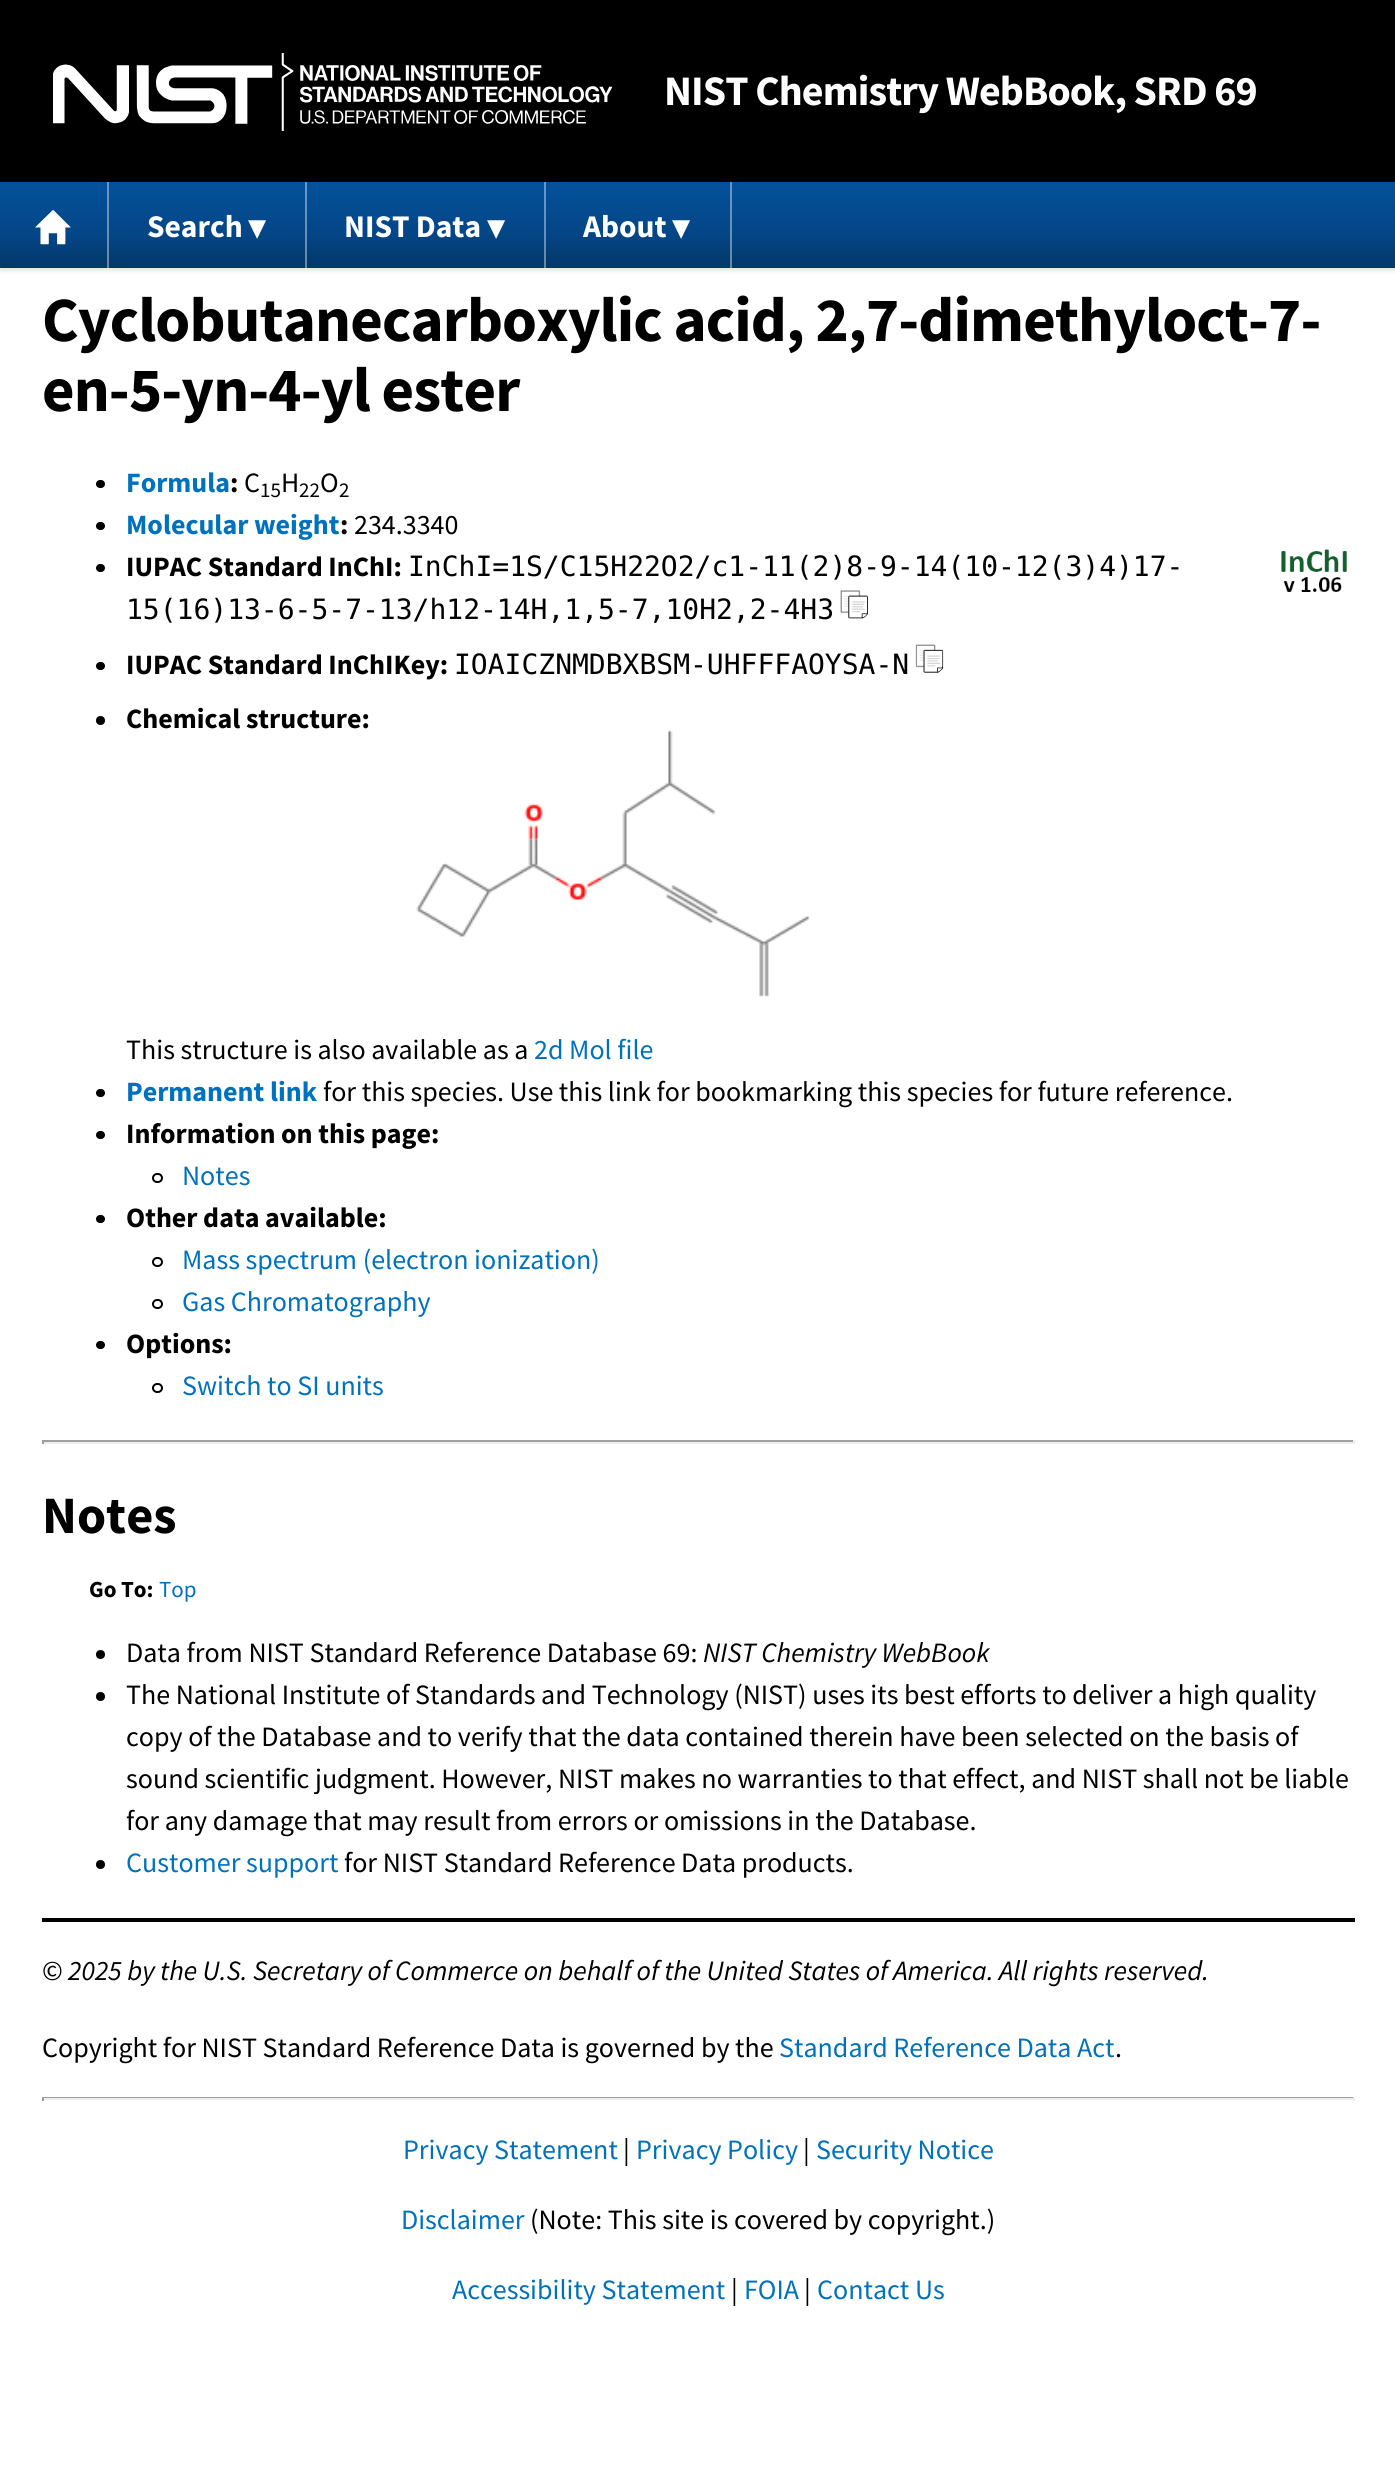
import math
import cairocffi as cairo

surface = cairo.ImageSurface(cairo.FORMAT_RGB24, 1395, 2478)
cr = cairo.Context(surface)
options = cairo.FontOptions()
options.set_hint_metrics(cairo.HINT_METRICS_OFF)
options.set_hint_style(cairo.HINT_STYLE_NONE)
cr.set_font_options(options)
cr.set_miter_limit(4)


def use_color(code):
    cr.set_source_rgb(*(v / 255 for v in bytes.fromhex(code[-6:])))


def spaced_text(x, y, s, letter, word):
    cr.move_to(x, y)
    for ch in s:
        cr.show_text(ch)
        cr.rel_move_to(letter + word * (ch == ' '), 0)


def round_rect(x, y, w, h, r):
    cr.new_sub_path()
    for i, (u, v) in enumerate([(x + w - r, y + h - r), (x + r, y + h - r), (x + r, y + r), (x + w - r, y + r)]):
        cr.arc(u, v, r, i * math.pi / 2, (i + 1) * math.pi / 2)
    cr.close_path()


def shadow(x, y, w, h, r, blur, alpha):
    cr.push_group_with_content(cairo.CONTENT_ALPHA)
    cr.set_operator(cairo.OPERATOR_SOURCE)
    for i in range(15, -16, -2):
        e = blur * i / 6
        if min(w, h) + 2 * e > 0:
            cr.set_source_rgba(0, 0, 0, alpha * math.erfc((i - 1) / 8.5) / 2)
            round_rect(x - e, y - e, w + 2 * e, h + 2 * e, max(0, min(r + e + blur * .6, min(w, h) / 2 + e)))
            cr.fill()
    cr.mask(cr.pop_group())


def picture(path, x, y, w, h):
    cr.save()
    cr.set_source_surface(cairo.ImageSurface.create_from_png(path), x, y)
    cr.rectangle(x, y, w, h)
    cr.fill()
    cr.restore()


use_color("#ffffff")
cr.paint()
use_color("#000000")
shadow(0, 186, 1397, 85, 0, 2, 0.1)
use_color("#000000")
cr.rectangle(0, 0, 1395, 182)
cr.fill()
picture("img1.png", 53, 53, 560, 78)
cr.select_font_face("Source Sans Pro", cairo.FONT_SLANT_NORMAL, cairo.FONT_WEIGHT_BOLD)
cr.set_font_size(42)
use_color("#ffffff")
spaced_text(664, 105, "NIST Chemistry WebBook, SRD 69", -0.9, 0)
gradient = cairo.LinearGradient(698, 182, 698, 268)
gradient.add_color_stop_rgba(0, 0.016, 0.318, 0.608, 1)
gradient.add_color_stop_rgba(0.6, 0.016, 0.275, 0.529, 1)
gradient.add_color_stop_rgba(1, 0.012, 0.216, 0.412, 1)
cr.set_source(gradient)
cr.rectangle(0, 182, 1395, 86)
cr.fill()
cr.set_source_rgba(1, 1, 1, 0.4)
cr.rectangle(107, 182, 2, 86)
cr.fill()
picture("img2.png", 35, 210, 36, 35)
cr.rectangle(305, 182, 2, 86)
cr.fill()
cr.set_font_size(31.5)
use_color("#ffffff")
cr.move_to(147, 237)
cr.show_text("Search")
cr.set_font_size(23)
cr.move_to(247, 237)
cr.show_text("▼")
cr.set_source_rgba(1, 1, 1, 0.4)
cr.rectangle(544, 182, 2, 86)
cr.fill()
cr.set_font_size(31.5)
use_color("#ffffff")
cr.move_to(344, 237)
cr.show_text("NIST Data")
cr.set_font_size(23)
cr.move_to(486, 237)
cr.show_text("▼")
cr.set_source_rgba(1, 1, 1, 0.4)
cr.rectangle(730, 182, 2, 86)
cr.fill()
cr.set_font_size(31.5)
use_color("#ffffff")
cr.move_to(583, 237)
cr.show_text("About")
cr.set_font_size(23)
cr.move_to(671, 237)
cr.show_text("▼")
cr.set_font_size(63)
use_color("#000000")
spaced_text(42, 341, "Cyclobutanecarboxylic acid, 2,7-dimethyloct-7-", -0.9, 0)
spaced_text(42, 411, "en-5-yn-4-yl ester", -0.9, 0)
round_rect(96, 480, 9, 8, 4)
cr.fill()
cr.set_font_size(28)
use_color("#0071bc")
cr.move_to(126, 492)
cr.show_text("Formula")
use_color("#000000")
cr.move_to(230, 492)
cr.show_text(":")
cr.select_font_face("Source Sans Pro")
cr.move_to(244, 492)
cr.show_text("C")
cr.set_font_size(21)
cr.move_to(260, 497)
cr.show_text("15")
cr.set_font_size(28)
cr.move_to(281, 492)
cr.show_text("H")
cr.set_font_size(21)
cr.move_to(299, 497)
cr.show_text("22")
cr.set_font_size(28)
cr.move_to(320, 492)
cr.show_text("O")
cr.set_font_size(21)
cr.move_to(339, 497)
cr.show_text("2")
round_rect(96, 522, 9, 8, 4)
cr.fill()
cr.select_font_face("Source Sans Pro", cairo.FONT_SLANT_NORMAL, cairo.FONT_WEIGHT_BOLD)
cr.set_font_size(28)
use_color("#0071bc")
cr.move_to(126, 534)
cr.show_text("Molecular weight")
use_color("#000000")
cr.move_to(340, 534)
cr.show_text(":")
cr.select_font_face("Source Sans Pro")
cr.move_to(354, 534)
cr.show_text("234.3340")
round_rect(96, 564, 9, 8, 4)
cr.fill()
cr.select_font_face("Source Sans Pro", cairo.FONT_SLANT_NORMAL, cairo.FONT_WEIGHT_BOLD)
cr.move_to(126, 576)
cr.show_text("IUPAC Standard InChI:")
cr.select_font_face("DejaVu Sans Mono")
cr.move_to(408, 576)
cr.show_text("InChI=1S/C15H22O2/c1-11(2)8-9-14(10-12(3)4)17-")
cr.move_to(126, 619)
cr.show_text("15(16)13-6-5-7-13/h12-14H,1,5-7,10H2,2-4H3")
picture("img3.png", 840, 590, 28, 29)
picture("img4.png", 1281, 549, 66, 43)
round_rect(96, 662, 9, 8, 4)
cr.fill()
cr.select_font_face("Source Sans Pro", cairo.FONT_SLANT_NORMAL, cairo.FONT_WEIGHT_BOLD)
cr.move_to(126, 674)
cr.show_text("IUPAC Standard InChIKey:")
cr.select_font_face("DejaVu Sans Mono")
cr.move_to(454, 674)
cr.show_text("IOAICZNMDBXBSM-UHFFFAOYSA-N")
picture("img5.png", 915, 644, 29, 29)
cr.arc(100.5, 720.5, 4.5, 0, 2 * math.pi)
cr.fill()
cr.select_font_face("Source Sans Pro", cairo.FONT_SLANT_NORMAL, cairo.FONT_WEIGHT_BOLD)
cr.move_to(126, 728)
cr.show_text("Chemical structure:")
picture("img6.png", 416, 729, 395, 268)
cr.select_font_face("Source Sans Pro")
cr.move_to(126, 1059)
cr.show_text("This structure is also available as a")
use_color("#0071bc")
cr.move_to(534, 1059)
cr.show_text("2d Mol file")
use_color("#000000")
round_rect(96, 1089, 9, 8, 4)
cr.fill()
cr.select_font_face("Source Sans Pro", cairo.FONT_SLANT_NORMAL, cairo.FONT_WEIGHT_BOLD)
use_color("#0071bc")
cr.move_to(126, 1101)
cr.show_text("Permanent link")
cr.select_font_face("Source Sans Pro")
use_color("#000000")
cr.move_to(323, 1101)
cr.show_text("for this species. Use this link for bookmarking this species for future reference.")
round_rect(96, 1131, 9, 8, 4)
cr.fill()
cr.select_font_face("Source Sans Pro", cairo.FONT_SLANT_NORMAL, cairo.FONT_WEIGHT_BOLD)
cr.move_to(126, 1143)
cr.show_text("Information on this page:")
round_rect(153, 1174, 9, 8, 4)
cr.stroke()
cr.select_font_face("Source Sans Pro")
use_color("#0071bc")
cr.move_to(182, 1185)
cr.show_text("Notes")
use_color("#000000")
round_rect(96, 1215, 9, 8, 4)
cr.fill()
cr.select_font_face("Source Sans Pro", cairo.FONT_SLANT_NORMAL, cairo.FONT_WEIGHT_BOLD)
cr.move_to(126, 1227)
cr.show_text("Other data available:")
round_rect(153, 1258, 9, 8, 4)
cr.stroke()
cr.select_font_face("Source Sans Pro")
use_color("#0071bc")
cr.move_to(182, 1269)
cr.show_text("Mass spectrum (electron ionization)")
round_rect(153, 1300, 9, 8, 4)
use_color("#000000")
cr.stroke()
use_color("#0071bc")
cr.move_to(182, 1311)
cr.show_text("Gas Chromatography")
use_color("#000000")
round_rect(96, 1341, 9, 8, 4)
cr.fill()
cr.select_font_face("Source Sans Pro", cairo.FONT_SLANT_NORMAL, cairo.FONT_WEIGHT_BOLD)
cr.move_to(126, 1353)
cr.show_text("Options:")
round_rect(153, 1384, 9, 8, 4)
cr.stroke()
cr.select_font_face("Source Sans Pro")
use_color("#0071bc")
cr.move_to(182, 1395)
cr.show_text("Switch to SI units")
use_color("#9f9f9f")
cr.rectangle(42, 1440, 1313, 2)
cr.fill()
use_color("#eeeeee")
cr.rectangle(1353, 1440, 2, 4)
cr.fill()
cr.rectangle(42, 1442, 1313, 2)
cr.fill()
use_color("#9f9f9f")
cr.rectangle(42, 1440, 2, 4)
cr.fill()
cr.select_font_face("Source Sans Pro", cairo.FONT_SLANT_NORMAL, cairo.FONT_WEIGHT_BOLD)
cr.set_font_size(52.5)
use_color("#000000")
cr.move_to(42, 1533)
cr.show_text("Notes")
cr.set_font_size(23)
cr.move_to(89, 1597)
cr.show_text("Go To:")
cr.select_font_face("Source Sans Pro")
use_color("#0071bc")
cr.move_to(159, 1597)
cr.show_text("Top")
use_color("#000000")
cr.new_path()
cr.arc(100.5, 1654.5, 4.5, 0, 2 * math.pi)
cr.fill()
cr.set_font_size(28)
cr.move_to(126, 1662)
cr.show_text("Data from NIST Standard Reference Database 69:")
cr.select_font_face("Source Sans Pro", cairo.FONT_SLANT_ITALIC)
cr.move_to(703, 1662)
cr.show_text("NIST Chemistry WebBook")
cr.new_path()
cr.arc(100.5, 1696.5, 4.5, 0, 2 * math.pi)
cr.fill()
cr.select_font_face("Source Sans Pro")
cr.move_to(126, 1704)
cr.show_text("The National Institute of Standards and Technology (NIST) uses its best efforts to deliver a high quality")
cr.move_to(126, 1746)
cr.show_text("copy of the Database and to verify that the data contained therein have been selected on the basis of")
cr.move_to(126, 1788)
cr.show_text("sound scientific judgment. However, NIST makes no warranties to that effect, and NIST shall not be liable")
cr.move_to(126, 1830)
cr.show_text("for any damage that may result from errors or omissions in the Database.")
cr.new_path()
cr.arc(100.5, 1864.5, 4.5, 0, 2 * math.pi)
cr.fill()
use_color("#0071bc")
cr.move_to(126, 1872)
cr.show_text("Customer support")
use_color("#000000")
cr.move_to(344, 1872)
cr.show_text("for NIST Standard Reference Data products.")
cr.rectangle(42, 1918, 1313, 4)
cr.fill()
cr.move_to(42, 1980)
cr.show_text("©")
cr.select_font_face("Source Sans Pro", cairo.FONT_SLANT_ITALIC)
cr.move_to(68, 1980)
cr.show_text("2025 by the U.S. Secretary of Commerce on behalf of the United States of America. All rights reserved.")
cr.select_font_face("Source Sans Pro")
cr.move_to(42, 2057)
cr.show_text("Copyright for NIST Standard Reference Data is governed by the")
use_color("#0071bc")
cr.move_to(779, 2057)
cr.show_text("Standard Reference Data Act")
use_color("#000000")
cr.move_to(1115, 2057)
cr.show_text(".")
use_color("#9f9f9f")
cr.rectangle(42, 2097, 1313, 1)
cr.fill()
use_color("#eeeeee")
cr.rectangle(1353, 2097, 2, 4)
cr.fill()
cr.rectangle(42, 2098, 1313, 2)
cr.fill()
use_color("#9f9f9f")
cr.rectangle(42, 2097, 2, 4)
cr.fill()
use_color("#0071bc")
cr.move_to(403, 2159)
cr.show_text("Privacy Statement")
use_color("#000000")
cr.move_to(623, 2159)
cr.show_text("|")
use_color("#0071bc")
cr.move_to(636, 2159)
cr.show_text("Privacy Policy")
use_color("#000000")
cr.move_to(803, 2159)
cr.show_text("|")
use_color("#0071bc")
cr.move_to(816, 2159)
cr.show_text("Security Notice")
cr.move_to(401, 2229)
cr.show_text("Disclaimer")
use_color("#000000")
cr.move_to(530, 2229)
cr.show_text("(Note: This site is covered by copyright.)")
use_color("#0071bc")
cr.move_to(452, 2299)
cr.show_text("Accessibility Statement")
use_color("#000000")
cr.move_to(731, 2299)
cr.show_text("|")
use_color("#0071bc")
cr.move_to(744, 2299)
cr.show_text("FOIA")
use_color("#000000")
cr.move_to(804, 2299)
cr.show_text("|")
use_color("#0071bc")
cr.move_to(817, 2299)
cr.show_text("Contact Us")
surface.write_to_png("result.png")
